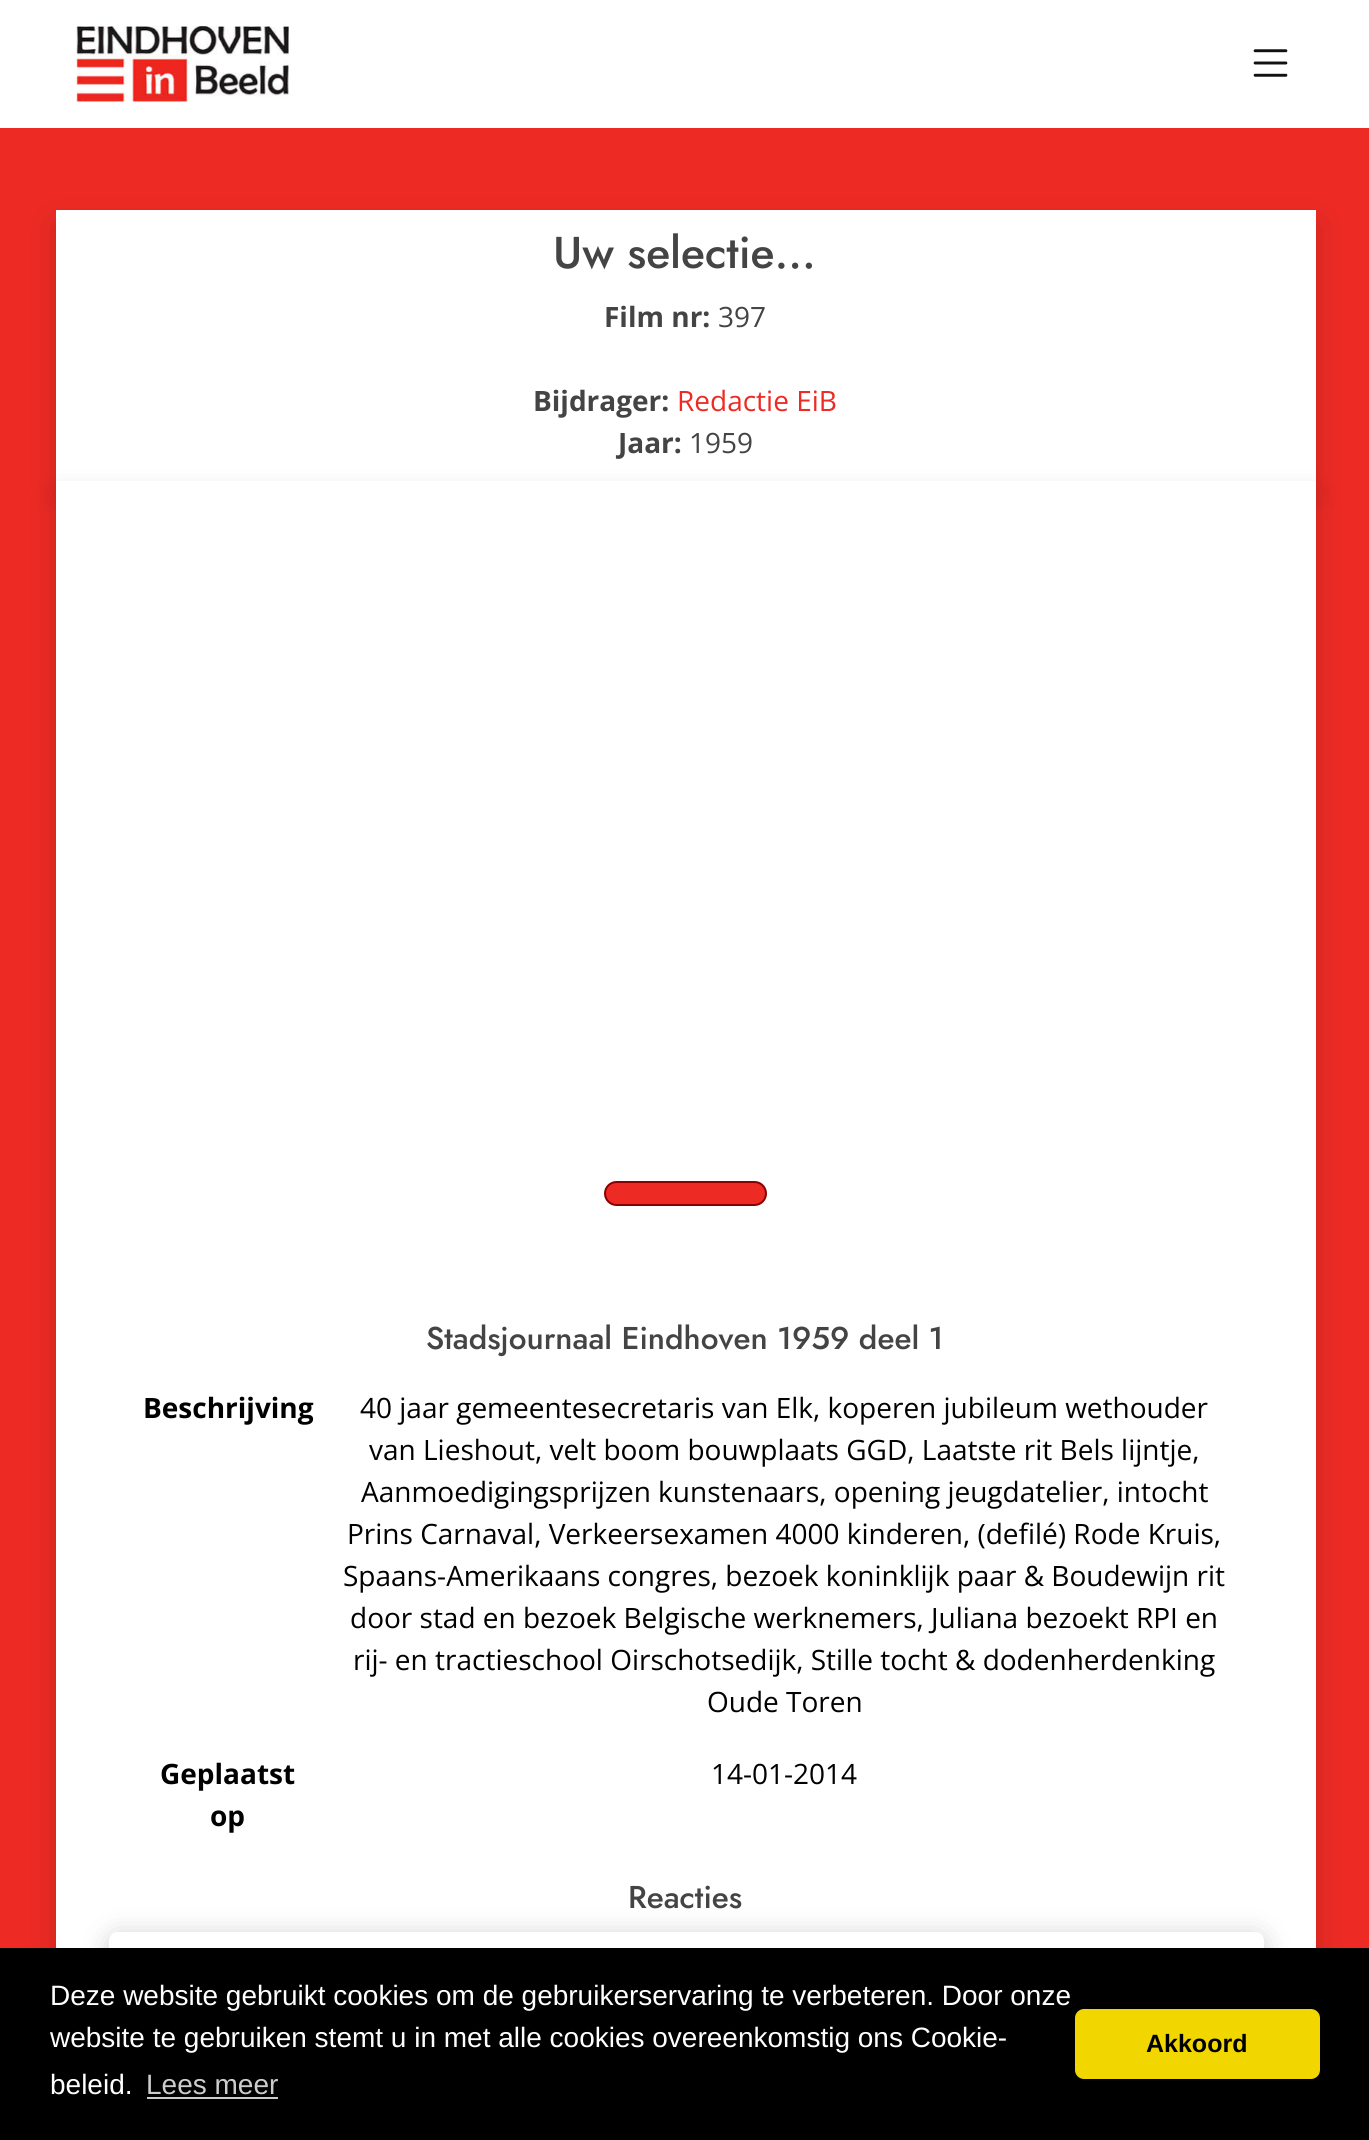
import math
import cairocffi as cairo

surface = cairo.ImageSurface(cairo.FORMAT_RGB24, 1369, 2140)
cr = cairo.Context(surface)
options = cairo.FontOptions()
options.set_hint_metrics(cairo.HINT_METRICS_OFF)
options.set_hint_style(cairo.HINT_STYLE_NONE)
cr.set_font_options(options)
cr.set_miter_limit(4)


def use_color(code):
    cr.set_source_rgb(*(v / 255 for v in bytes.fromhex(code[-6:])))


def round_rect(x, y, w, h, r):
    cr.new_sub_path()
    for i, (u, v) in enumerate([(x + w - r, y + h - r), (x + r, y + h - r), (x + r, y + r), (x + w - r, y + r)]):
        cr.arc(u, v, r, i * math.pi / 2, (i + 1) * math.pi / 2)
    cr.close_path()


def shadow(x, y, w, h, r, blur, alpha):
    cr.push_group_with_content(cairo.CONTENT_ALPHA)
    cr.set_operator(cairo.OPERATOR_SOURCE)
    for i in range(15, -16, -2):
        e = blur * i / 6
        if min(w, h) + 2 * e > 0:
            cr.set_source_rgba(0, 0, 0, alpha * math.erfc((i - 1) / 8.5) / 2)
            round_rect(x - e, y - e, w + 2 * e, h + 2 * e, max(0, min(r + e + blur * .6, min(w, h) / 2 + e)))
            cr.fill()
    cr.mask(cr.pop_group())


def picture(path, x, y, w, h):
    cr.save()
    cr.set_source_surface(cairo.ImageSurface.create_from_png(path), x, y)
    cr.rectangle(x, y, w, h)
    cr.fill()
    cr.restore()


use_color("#ed2a24")
cr.paint()
use_color("#ffffff")
cr.rectangle(0, 0, 1369, 128)
cr.fill()
picture("img1.png", 76, 26, 213, 76)
picture("img2.png", 1253, 49, 35, 28)
use_color("#000000")
shadow(56, 224, 1260, 271, 0, 14, 0.15)
use_color("#ffffff")
cr.rectangle(56, 210, 1260, 271)
cr.fill()
cr.select_font_face("Jost Medium")
cr.set_font_size(44.5)
use_color("#444444")
cr.move_to(553, 268)
cr.show_text("Uw selectie...")
cr.select_font_face("Open Sans", cairo.FONT_SLANT_NORMAL, cairo.FONT_WEIGHT_BOLD)
cr.set_font_size(28)
cr.move_to(604, 327)
cr.show_text("Film nr:")
cr.select_font_face("Open Sans")
cr.move_to(718, 327)
cr.show_text("397")
cr.select_font_face("Open Sans", cairo.FONT_SLANT_NORMAL, cairo.FONT_WEIGHT_BOLD)
cr.move_to(533, 411)
cr.show_text("Bijdrager:")
cr.select_font_face("Open Sans")
use_color("#ed2a24")
cr.move_to(677, 411)
cr.show_text("Redactie EiB")
cr.select_font_face("Open Sans", cairo.FONT_SLANT_NORMAL, cairo.FONT_WEIGHT_BOLD)
use_color("#444444")
cr.move_to(618, 453)
cr.show_text("Jaar:")
cr.select_font_face("Open Sans")
cr.move_to(689, 453)
cr.show_text("1959")
use_color("#000000")
shadow(56, 495, 1260, 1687, 0, 14, 0.15)
use_color("#ffffff")
cr.rectangle(56, 481, 1260, 1467)
cr.fill()
use_color("#ed2a24")
round_rect(605, 1182, 161, 23, 11.5)
cr.fill_preserve()
use_color("#8b0000")
cr.stroke()
cr.select_font_face("Jost Medium")
cr.set_font_size(31.5)
use_color("#444444")
cr.move_to(426, 1349)
cr.show_text("Stadsjournaal Eindhoven 1959 deel 1")
cr.select_font_face("Open Sans", cairo.FONT_SLANT_NORMAL, cairo.FONT_WEIGHT_BOLD)
cr.set_font_size(28)
use_color("#000000")
cr.move_to(143, 1418)
cr.show_text("Beschrijving")
cr.select_font_face("Open Sans")
cr.move_to(360, 1418)
cr.show_text("40 jaar gemeentesecretaris van Elk, koperen jubileum wethouder")
cr.move_to(369, 1460)
cr.show_text("van Lieshout, velt boom bouwplaats GGD, Laatste rit Bels lijntje,")
cr.move_to(361, 1502)
cr.show_text("Aanmoedigingsprijzen kunstenaars, opening jeugdatelier, intocht")
cr.move_to(347, 1544)
cr.show_text("Prins Carnaval, Verkeersexamen 4000 kinderen, (defilé) Rode Kruis,")
cr.move_to(343, 1586)
cr.show_text("Spaans-Amerikaans congres, bezoek koninklijk paar & Boudewijn rit")
cr.move_to(350, 1628)
cr.show_text("door stad en bezoek Belgische werknemers, Juliana bezoekt RPI en")
cr.move_to(353, 1670)
cr.show_text("rij- en tractieschool Oirschotsedijk, Stille tocht & dodenherdenking")
cr.move_to(707, 1712)
cr.show_text("Oude Toren")
cr.select_font_face("Open Sans", cairo.FONT_SLANT_NORMAL, cairo.FONT_WEIGHT_BOLD)
cr.move_to(160, 1784)
cr.show_text("Geplaatst")
cr.move_to(210, 1826)
cr.show_text("op")
cr.select_font_face("Open Sans")
cr.move_to(711, 1784)
cr.show_text("14-01-2014")
cr.save()
cr.set_fill_rule(cairo.FILL_RULE_EVEN_ODD)
cr.new_path()
cr.move_to(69, 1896)
cr.line_to(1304, 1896)
cr.line_to(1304, 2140)
cr.line_to(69, 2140)
cr.close_path()
cr.move_to(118, 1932)
cr.line_to(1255, 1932)
cr.curve_to(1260, 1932, 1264, 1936, 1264, 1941)
cr.line_to(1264, 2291)
cr.curve_to(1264, 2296, 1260, 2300, 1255, 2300)
cr.line_to(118, 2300)
cr.curve_to(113, 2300, 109, 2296, 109, 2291)
cr.line_to(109, 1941)
cr.curve_to(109, 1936, 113, 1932, 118, 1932)
cr.close_path()
cr.clip()
use_color("#cccccc")
shadow(109, 1936, 1155, 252, 9, 13, 1)
cr.restore()
cr.select_font_face("Jost Medium")
cr.set_font_size(31.5)
use_color("#444444")
cr.move_to(628, 1908)
cr.show_text("Reacties")
use_color("#000000")
cr.rectangle(0, 1948, 1369, 192)
cr.fill()
cr.select_font_face("Liberation Sans")
cr.set_font_size(28)
use_color("#ffffff")
cr.move_to(50, 2005)
cr.show_text("Deze website gebruikt cookies om de gebruikerservaring te verbeteren. Door onze")
cr.move_to(50, 2047)
cr.show_text("website te gebruiken stemt u in met alle cookies overeenkomstig ons Cookie-")
cr.move_to(50, 2094)
cr.show_text("beleid.")
use_color("#cccccc")
cr.move_to(146, 2094)
cr.show_text("Lees meer")
cr.rectangle(147, 2097, 131, 2)
cr.fill()
use_color("#f1d600")
round_rect(1075, 2009, 245, 70, 9)
cr.fill()
cr.select_font_face("Liberation Sans", cairo.FONT_SLANT_NORMAL, cairo.FONT_WEIGHT_BOLD)
cr.set_font_size(25)
use_color("#000000")
cr.move_to(1146, 2052)
cr.show_text("Akkoord")
surface.write_to_png("result.png")
